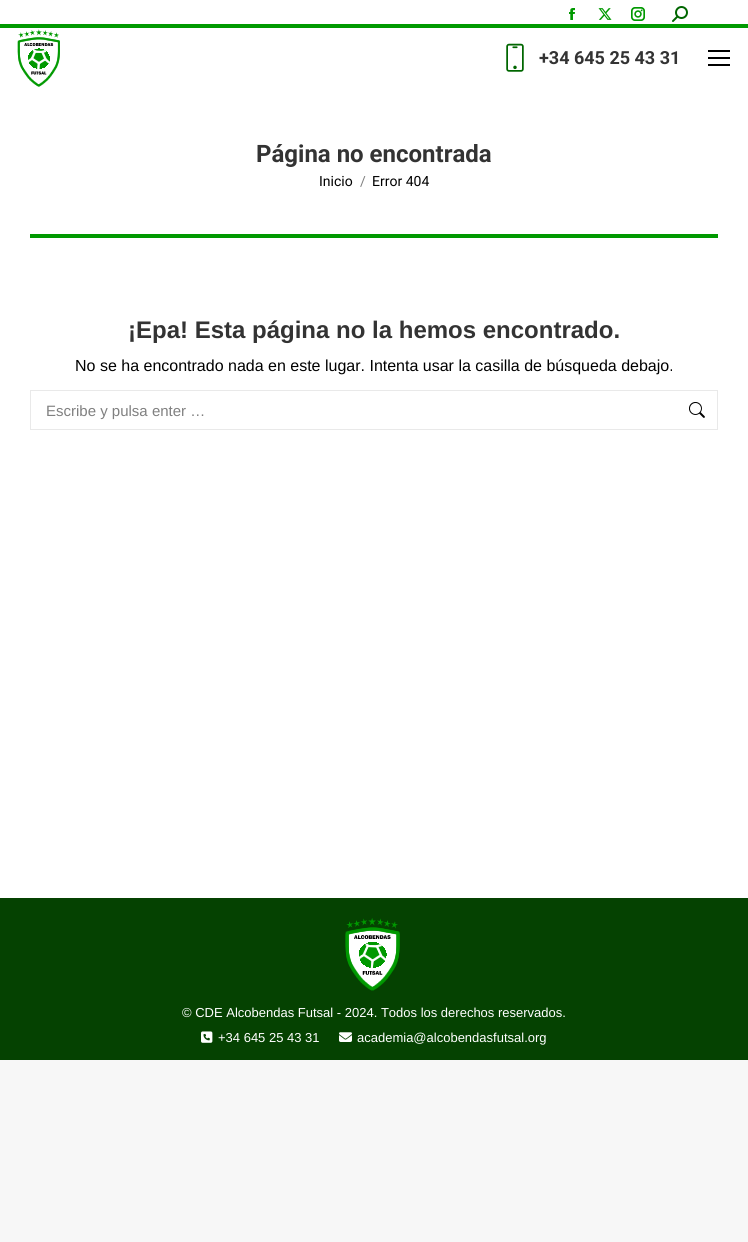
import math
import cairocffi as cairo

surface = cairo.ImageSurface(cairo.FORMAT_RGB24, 748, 1242)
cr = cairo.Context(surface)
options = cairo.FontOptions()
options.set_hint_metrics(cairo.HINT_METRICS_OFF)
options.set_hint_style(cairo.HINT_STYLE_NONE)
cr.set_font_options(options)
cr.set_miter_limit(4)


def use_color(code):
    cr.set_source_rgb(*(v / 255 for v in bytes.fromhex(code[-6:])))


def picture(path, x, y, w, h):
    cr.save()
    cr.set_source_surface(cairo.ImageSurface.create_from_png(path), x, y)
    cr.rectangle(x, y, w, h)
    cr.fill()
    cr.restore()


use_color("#f7f7f7")
cr.paint()
use_color("#ffffff")
cr.rectangle(0, 0, 748, 898)
cr.fill()
picture("img1.png", 569, 8, 6, 12)
picture("img2.png", 598, 8, 14, 12)
picture("img3.png", 631, 7, 14, 14)
picture("img4.png", 672, 6, 16, 16)
use_color("#019a01")
cr.rectangle(0, 24, 748, 4)
cr.fill()
picture("img5.png", 17, 29, 43, 58)
picture("img6.png", 506, 43, 18, 29)
cr.select_font_face("Roboto", cairo.FONT_SLANT_NORMAL, cairo.FONT_WEIGHT_BOLD)
cr.set_font_size(18)
use_color("#333333")
cr.move_to(539, 64)
cr.show_text("+34 645 25 43 31")
use_color("#000000")
cr.rectangle(708, 50, 22, 2)
cr.fill()
cr.rectangle(708, 57, 22, 2)
cr.fill()
cr.rectangle(708, 64, 22, 2)
cr.fill()
cr.set_font_size(24)
use_color("#333333")
cr.move_to(256, 162)
cr.show_text("Página no encontrada")
cr.select_font_face("Roboto")
cr.set_font_size(14)
use_color("#000000")
cr.move_to(319, 186)
cr.show_text("Inicio")
use_color("#808080")
cr.move_to(360, 186)
cr.show_text("/")
use_color("#000000")
cr.move_to(372, 186)
cr.show_text("Error 404")
use_color("#009900")
cr.rectangle(30, 234, 688, 4)
cr.fill()
cr.select_font_face("Liberation Sans", cairo.FONT_SLANT_NORMAL, cairo.FONT_WEIGHT_BOLD)
cr.set_font_size(24)
use_color("#333333")
cr.move_to(128, 338)
cr.show_text("¡Epa! Esta página no la hemos encontrado.")
cr.select_font_face("Liberation Sans")
cr.set_font_size(16)
use_color("#000000")
cr.move_to(75, 371)
cr.show_text("No se ha encontrado nada en este lugar. Intenta usar la casilla de búsqueda debajo.")
cr.rectangle(30.5, 390.5, 687, 39)
use_color("#e9e9e9")
cr.set_line_width(1)
cr.stroke()
cr.set_font_size(15)
use_color("#808080")
cr.move_to(46, 416)
cr.show_text("Escribe y pulsa enter …")
picture("img7.png", 689, 402, 16, 16)
use_color("#054201")
cr.rectangle(0, 898, 748, 162)
cr.fill()
picture("img8.png", 345, 918, 55, 73)
cr.set_font_size(13)
use_color("#ffffff")
cr.move_to(182, 1017)
cr.show_text("© CDE Alcobendas Futsal - 2024. Todos los derechos reservados.")
picture("img9.png", 201, 1031, 12, 12)
cr.move_to(218, 1042)
cr.show_text("+34 645 25 43 31")
picture("img10.png", 339, 1032, 13, 10)
cr.move_to(357, 1042)
cr.show_text("academia@alcobendasfutsal.org")
surface.write_to_png("result.png")
